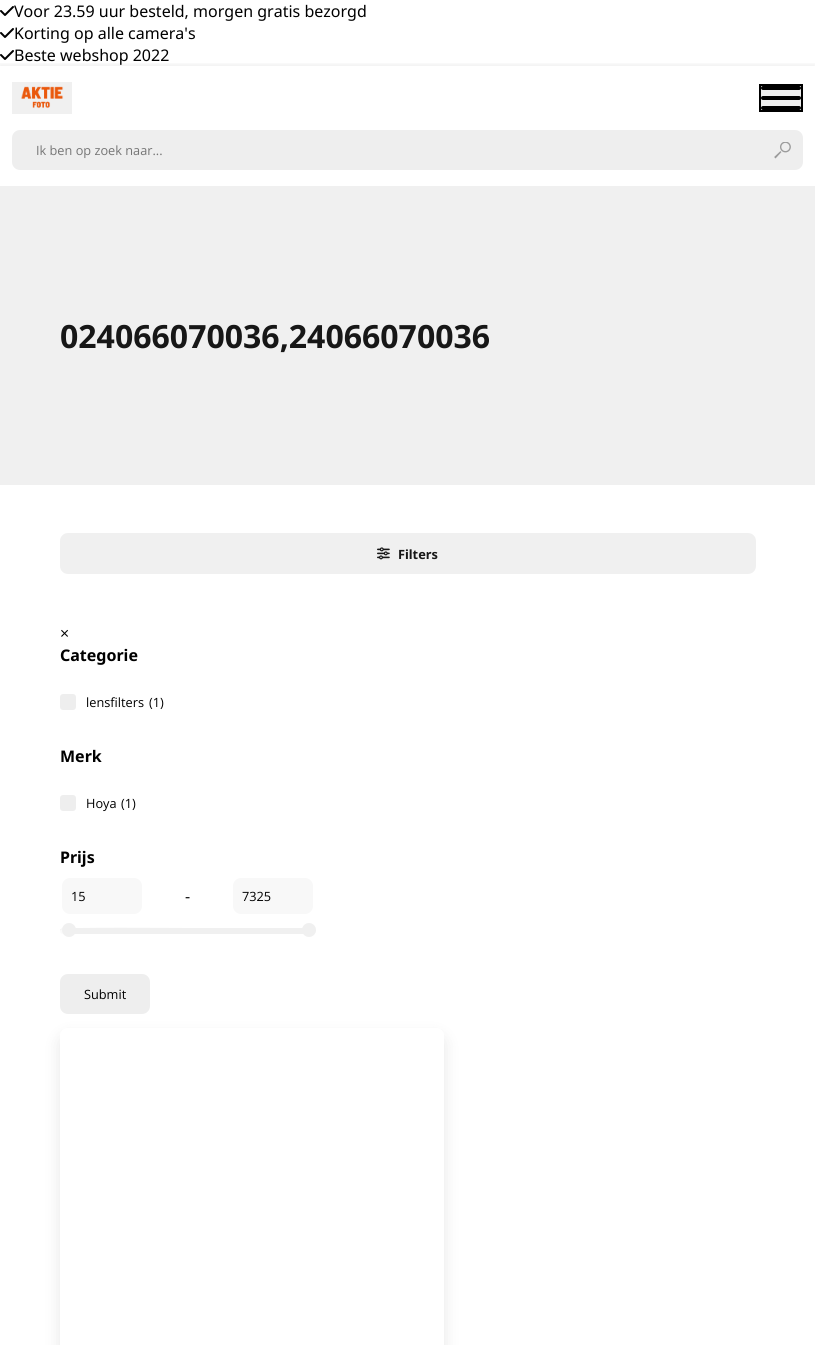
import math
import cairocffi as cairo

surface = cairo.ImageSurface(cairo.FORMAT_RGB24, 815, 1345)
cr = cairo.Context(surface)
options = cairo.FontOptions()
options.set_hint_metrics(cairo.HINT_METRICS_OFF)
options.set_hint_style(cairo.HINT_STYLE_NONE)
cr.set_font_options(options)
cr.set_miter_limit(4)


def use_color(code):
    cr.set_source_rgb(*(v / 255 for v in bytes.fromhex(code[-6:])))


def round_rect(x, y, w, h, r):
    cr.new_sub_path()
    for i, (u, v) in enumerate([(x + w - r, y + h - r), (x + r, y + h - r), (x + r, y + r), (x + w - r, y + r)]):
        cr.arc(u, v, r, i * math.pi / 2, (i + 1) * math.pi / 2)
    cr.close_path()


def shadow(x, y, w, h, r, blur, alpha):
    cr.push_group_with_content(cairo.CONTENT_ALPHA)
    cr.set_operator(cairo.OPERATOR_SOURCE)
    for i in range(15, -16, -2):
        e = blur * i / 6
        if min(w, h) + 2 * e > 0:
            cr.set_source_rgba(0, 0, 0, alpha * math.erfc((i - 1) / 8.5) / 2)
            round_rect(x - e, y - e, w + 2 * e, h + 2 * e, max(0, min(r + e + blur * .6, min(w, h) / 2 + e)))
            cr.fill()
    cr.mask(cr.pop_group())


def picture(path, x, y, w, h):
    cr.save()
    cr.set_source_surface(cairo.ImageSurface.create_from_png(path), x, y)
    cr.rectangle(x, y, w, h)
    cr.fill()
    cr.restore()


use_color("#ffffff")
cr.paint()
picture("img1.png", 0, 6, 14, 10)
cr.select_font_face("Noto Sans")
cr.set_font_size(16)
use_color("#000000")
cr.move_to(14, 17)
cr.show_text("Voor 23.59 uur besteld, morgen gratis bezorgd")
picture("img1.png", 0, 28, 14, 10)
cr.move_to(14, 39)
cr.show_text("Korting op alle camera's")
cr.save()
cr.rectangle(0, 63, 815, 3)
cr.clip()
use_color("#000000")
shadow(0, 66, 815, 120, 0, 4, 0.1)
cr.restore()
picture("img2.png", 0, 50, 14, 10)
cr.move_to(14, 61)
cr.show_text("Beste webshop 2022")
picture("img3.png", 12, 82, 60, 32)
use_color("#efefef")
cr.rectangle(760, 85, 42, 26)
cr.fill_preserve()
use_color("#000000")
cr.stroke()
round_rect(761, 96, 40, 4, 2)
cr.fill()
round_rect(761, 86, 40, 4, 2)
cr.fill()
round_rect(761, 106, 40, 4, 2)
cr.fill()
use_color("#eeeeee")
round_rect(12, 130, 791, 40, 8)
cr.fill()
cr.select_font_face("Open Sans")
cr.set_font_size(12.75)
use_color("#757575")
cr.move_to(36, 155)
cr.show_text("Ik ben op zoek naar...")
picture("img4.png", 774, 142, 17, 17)
use_color("#f0f0f0")
cr.rectangle(0, 186, 815, 299)
cr.fill()
cr.select_font_face("Noto Sans", cairo.FONT_SLANT_NORMAL, cairo.FONT_WEIGHT_BOLD)
cr.set_font_size(32)
use_color("#171717")
cr.move_to(60, 348)
cr.show_text("024066070036,24066070036")
use_color("#f0f0f0")
round_rect(60, 533, 696, 41, 8)
cr.fill()
picture("img5.png", 377, 547, 13, 13)
cr.set_font_size(12.75)
use_color("#171717")
cr.move_to(398, 559)
cr.show_text("Filters")
cr.select_font_face("Open Sans")
cr.set_font_size(16)
use_color("#000000")
cr.move_to(60, 639)
cr.show_text("×")
cr.select_font_face("Noto Sans", cairo.FONT_SLANT_NORMAL, cairo.FONT_WEIGHT_BOLD)
cr.move_to(60, 661)
cr.show_text("Categorie")
use_color("#eeeeee")
round_rect(60, 694, 16, 16, 3)
cr.fill()
cr.select_font_face("Open Sans")
cr.set_font_size(12.75)
use_color("#000000")
cr.move_to(86, 707)
cr.show_text("lensfilters")
cr.move_to(149, 707)
cr.show_text("(1)")
cr.select_font_face("Noto Sans", cairo.FONT_SLANT_NORMAL, cairo.FONT_WEIGHT_BOLD)
cr.set_font_size(16)
cr.move_to(60, 762)
cr.show_text("Merk")
use_color("#eeeeee")
round_rect(60, 795, 16, 16, 3)
cr.fill()
cr.select_font_face("Open Sans")
cr.set_font_size(12.75)
use_color("#000000")
cr.move_to(86, 808)
cr.show_text("Hoya")
cr.move_to(121, 808)
cr.show_text("(1)")
cr.select_font_face("Noto Sans", cairo.FONT_SLANT_NORMAL, cairo.FONT_WEIGHT_BOLD)
cr.set_font_size(16)
cr.move_to(60, 863)
cr.show_text("Prijs")
use_color("#f8f8f8")
round_rect(62, 878, 80, 36, 8)
cr.fill()
cr.select_font_face("Open Sans")
cr.set_font_size(12.75)
use_color("#000000")
cr.move_to(71, 901)
cr.show_text("15")
cr.set_font_size(16)
cr.move_to(185, 902)
cr.show_text("-")
use_color("#f8f8f8")
round_rect(233, 878, 80, 36, 8)
cr.fill()
cr.set_font_size(12.75)
use_color("#000000")
cr.move_to(242, 901)
cr.show_text("7325")
use_color("#fafafa")
round_rect(60, 928, 256, 6, 3)
cr.fill()
use_color("#f0f0f0")
cr.new_path()
cr.move_to(63, 929)
cr.line_to(313, 929)
cr.curve_to(314, 929, 316, 930, 316, 932)
cr.line_to(316, 930)
cr.curve_to(315, 929, 314, 928, 313, 928)
cr.line_to(188, 928)
cr.curve_to(177, 928, 63, 927, 61, 929)
cr.curve_to(60, 929, 60, 930, 60, 931)
cr.curve_to(60, 930, 61, 929, 63, 929)
cr.close_path()
cr.fill()
cr.rectangle(68, 928, 240, 6)
cr.fill()
cr.arc(69, 930, 7, 0, 2 * math.pi)
cr.fill()
cr.arc(309, 930, 7, 0, 2 * math.pi)
cr.fill()
use_color("#eeeeee")
round_rect(60, 974, 90, 40, 8)
cr.fill()
use_color("#000000")
cr.move_to(84, 999)
cr.show_text("Submit")
cr.save()
cr.set_fill_rule(cairo.FILL_RULE_EVEN_ODD)
cr.new_path()
cr.move_to(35, 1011)
cr.line_to(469, 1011)
cr.line_to(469, 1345)
cr.line_to(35, 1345)
cr.close_path()
cr.move_to(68, 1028)
cr.line_to(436, 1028)
cr.curve_to(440.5, 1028, 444, 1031.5, 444, 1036)
cr.line_to(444, 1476)
cr.curve_to(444, 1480.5, 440.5, 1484, 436, 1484)
cr.line_to(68, 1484)
cr.curve_to(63.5, 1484, 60, 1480.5, 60, 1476)
cr.line_to(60, 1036)
cr.curve_to(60, 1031.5, 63.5, 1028, 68, 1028)
cr.close_path()
cr.clip()
use_color("#000000")
shadow(60, 1036, 384, 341, 8, 8, 0.1)
cr.restore()
surface.write_to_png("result.png")
